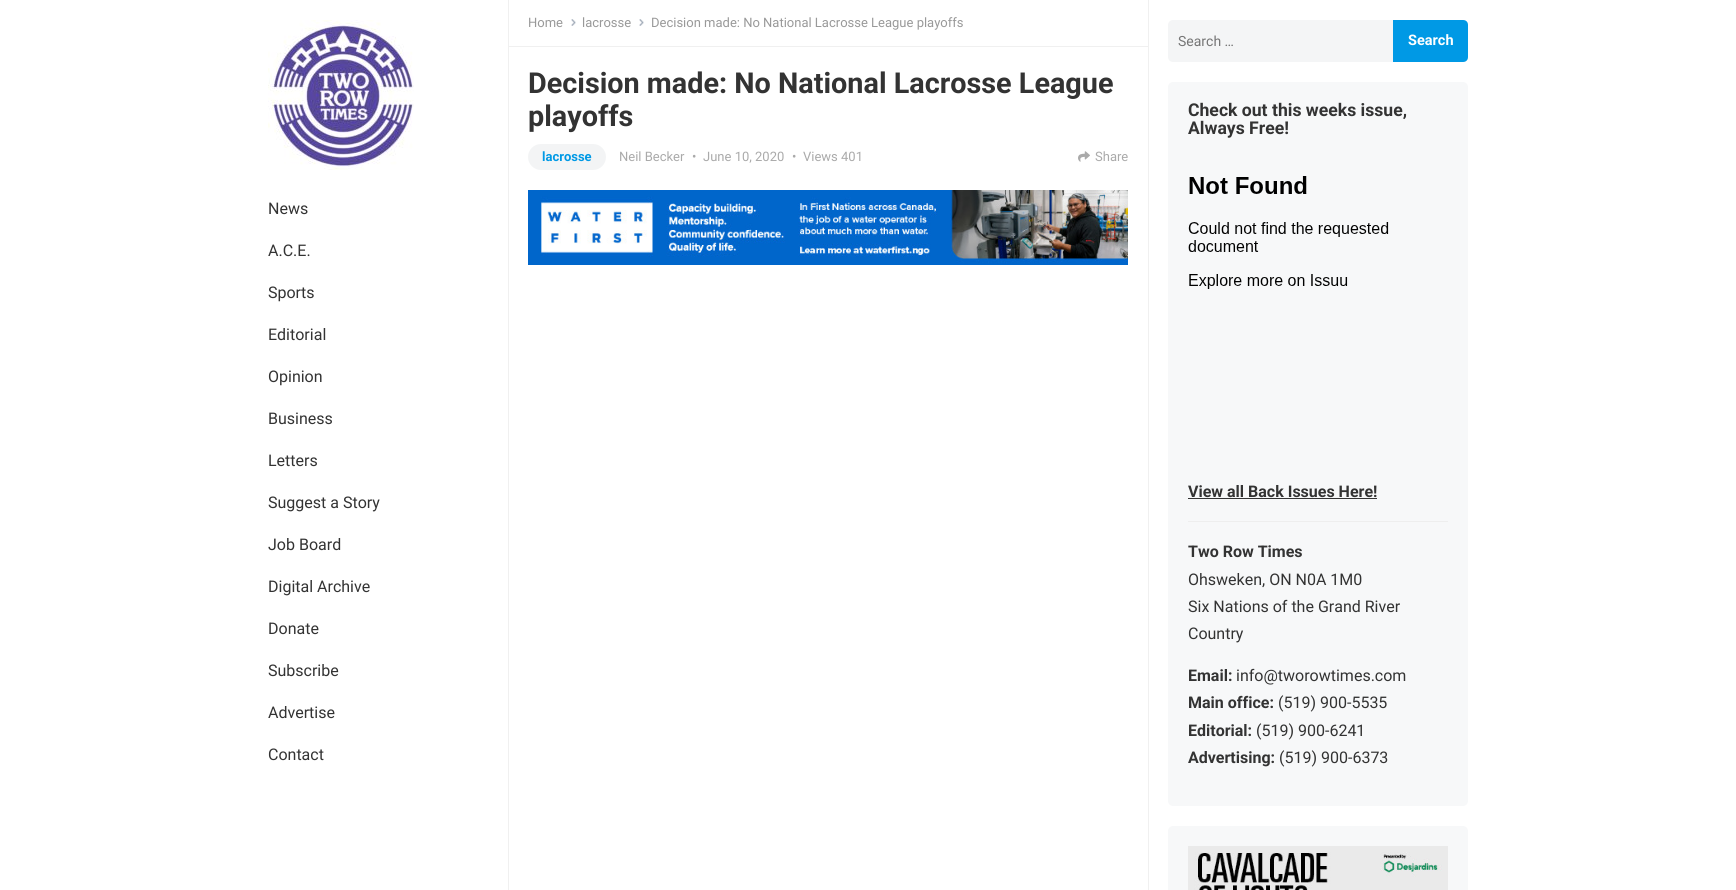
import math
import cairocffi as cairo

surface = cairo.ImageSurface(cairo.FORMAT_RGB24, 1736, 890)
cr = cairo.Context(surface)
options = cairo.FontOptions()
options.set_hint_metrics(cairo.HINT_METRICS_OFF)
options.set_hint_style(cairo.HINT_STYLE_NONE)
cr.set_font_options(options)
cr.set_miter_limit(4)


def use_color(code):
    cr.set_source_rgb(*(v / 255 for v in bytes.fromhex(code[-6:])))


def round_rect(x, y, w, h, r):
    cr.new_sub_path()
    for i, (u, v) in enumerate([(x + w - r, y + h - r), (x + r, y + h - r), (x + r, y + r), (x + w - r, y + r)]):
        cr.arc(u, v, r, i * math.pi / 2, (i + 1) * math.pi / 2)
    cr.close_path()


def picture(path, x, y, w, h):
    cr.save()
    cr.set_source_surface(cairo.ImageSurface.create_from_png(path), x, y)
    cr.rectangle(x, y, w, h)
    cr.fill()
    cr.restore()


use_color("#ffffff")
cr.paint()
use_color("#f0f0f0")
cr.rectangle(508, 46, 640, 1)
cr.fill()
cr.rectangle(508, 0, 1, 890)
cr.fill()
cr.rectangle(1148, 0, 1, 890)
cr.fill()
picture("img1.png", 268, 20, 146, 150)
cr.select_font_face("Roboto")
cr.set_font_size(16)
use_color("#333333")
cr.move_to(268, 214)
cr.show_text("News")
cr.move_to(268, 256)
cr.show_text("A.C.E.")
cr.move_to(268, 298)
cr.show_text("Sports")
cr.move_to(268, 340)
cr.show_text("Editorial")
cr.move_to(268, 382)
cr.show_text("Opinion")
cr.move_to(268, 424)
cr.show_text("Business")
cr.move_to(268, 466)
cr.show_text("Letters")
cr.move_to(268, 508)
cr.show_text("Suggest a Story")
cr.move_to(268, 550)
cr.show_text("Job Board")
cr.move_to(268, 592)
cr.show_text("Digital Archive")
cr.move_to(268, 634)
cr.show_text("Donate")
cr.move_to(268, 676)
cr.show_text("Subscribe")
cr.move_to(268, 718)
cr.show_text("Advertise")
cr.move_to(268, 760)
cr.show_text("Contact")
cr.set_font_size(13)
use_color("#999999")
cr.move_to(528, 27)
cr.show_text("Home")
picture("img2.png", 571, 19, 5, 7)
cr.move_to(582, 27)
cr.show_text("lacrosse")
picture("img2.png", 639, 19, 5, 7)
cr.move_to(651, 27)
cr.show_text("Decision made: No National Lacrosse League playoffs")
cr.select_font_face("Roboto", cairo.FONT_SLANT_NORMAL, cairo.FONT_WEIGHT_BOLD)
cr.set_font_size(28.8)
use_color("#333333")
cr.move_to(528, 93)
cr.show_text("Decision made: No National Lacrosse League")
cr.move_to(528, 126)
cr.show_text("playoffs")
use_color("#f3f4f5")
round_rect(528, 144, 78, 26, 13)
cr.fill()
cr.set_font_size(13)
use_color("#0099e5")
cr.move_to(542, 161)
cr.show_text("lacrosse")
cr.select_font_face("Roboto")
use_color("#aaaaaa")
cr.move_to(619, 161)
cr.show_text("Neil Becker")
cr.move_to(692, 161)
cr.show_text("•")
cr.move_to(703, 161)
cr.show_text("June 10, 2020")
cr.move_to(792, 161)
cr.show_text("•")
cr.move_to(803, 161)
cr.show_text("Views 401")
picture("img3.png", 1078, 151, 12, 11)
cr.move_to(1095, 161)
cr.show_text("Share")
picture("img4.png", 528, 190, 600, 75)
use_color("#f4f5f6")
round_rect(1168, 20, 300, 42, 5)
cr.fill()
cr.set_font_size(14)
use_color("#757575")
cr.move_to(1178, 46)
cr.show_text("Search …")
use_color("#0099e5")
cr.new_path()
cr.move_to(1393, 20)
cr.line_to(1463, 20)
cr.curve_to(1466, 20, 1468, 22, 1468, 25)
cr.line_to(1468, 57)
cr.curve_to(1468, 60, 1466, 62, 1463, 62)
cr.line_to(1393, 62)
cr.close_path()
cr.fill()
cr.select_font_face("Roboto", cairo.FONT_SLANT_NORMAL, cairo.FONT_WEIGHT_BOLD)
cr.set_font_size(14.5)
use_color("#ffffff")
cr.move_to(1408, 45)
cr.show_text("Search")
use_color("#f7f8f9")
round_rect(1168, 82, 300, 724, 5)
cr.fill()
cr.set_font_size(17.6)
use_color("#333333")
cr.move_to(1188, 116)
cr.show_text("Check out this weeks issue,")
cr.move_to(1188, 134)
cr.show_text("Always Free!")
picture("img5.png", 1188, 176, 201, 113)
cr.set_font_size(16)
cr.move_to(1188, 497)
cr.show_text("View all Back Issues Here!")
cr.rectangle(1188, 498, 189, 1)
cr.fill()
use_color("#eeeeee")
cr.rectangle(1188, 521, 260, 1)
cr.fill()
use_color("#333333")
cr.move_to(1188, 557)
cr.show_text("Two Row Times")
cr.select_font_face("Roboto")
cr.move_to(1188, 585)
cr.show_text("Ohsweken, ON N0A 1M0")
cr.move_to(1188, 612)
cr.show_text("Six Nations of the Grand River")
cr.move_to(1188, 639)
cr.show_text("Country")
cr.select_font_face("Roboto", cairo.FONT_SLANT_NORMAL, cairo.FONT_WEIGHT_BOLD)
cr.move_to(1188, 681)
cr.show_text("Email:")
cr.select_font_face("Roboto")
cr.move_to(1236, 681)
cr.show_text("info@tworowtimes.com")
cr.select_font_face("Roboto", cairo.FONT_SLANT_NORMAL, cairo.FONT_WEIGHT_BOLD)
cr.move_to(1188, 708)
cr.show_text("Main office:")
cr.select_font_face("Roboto")
cr.move_to(1278, 708)
cr.show_text("(519) 900-5535")
cr.select_font_face("Roboto", cairo.FONT_SLANT_NORMAL, cairo.FONT_WEIGHT_BOLD)
cr.move_to(1188, 736)
cr.show_text("Editorial:")
cr.select_font_face("Roboto")
cr.move_to(1256, 736)
cr.show_text("(519) 900-6241")
cr.select_font_face("Roboto", cairo.FONT_SLANT_NORMAL, cairo.FONT_WEIGHT_BOLD)
cr.move_to(1188, 763)
cr.show_text("Advertising:")
cr.select_font_face("Roboto")
cr.move_to(1279, 763)
cr.show_text("(519) 900-6373")
use_color("#f7f8f9")
round_rect(1168, 826, 300, 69, 5)
cr.fill()
picture("img6.png", 1188, 846, 260, 44)
surface.write_to_png("result.png")
